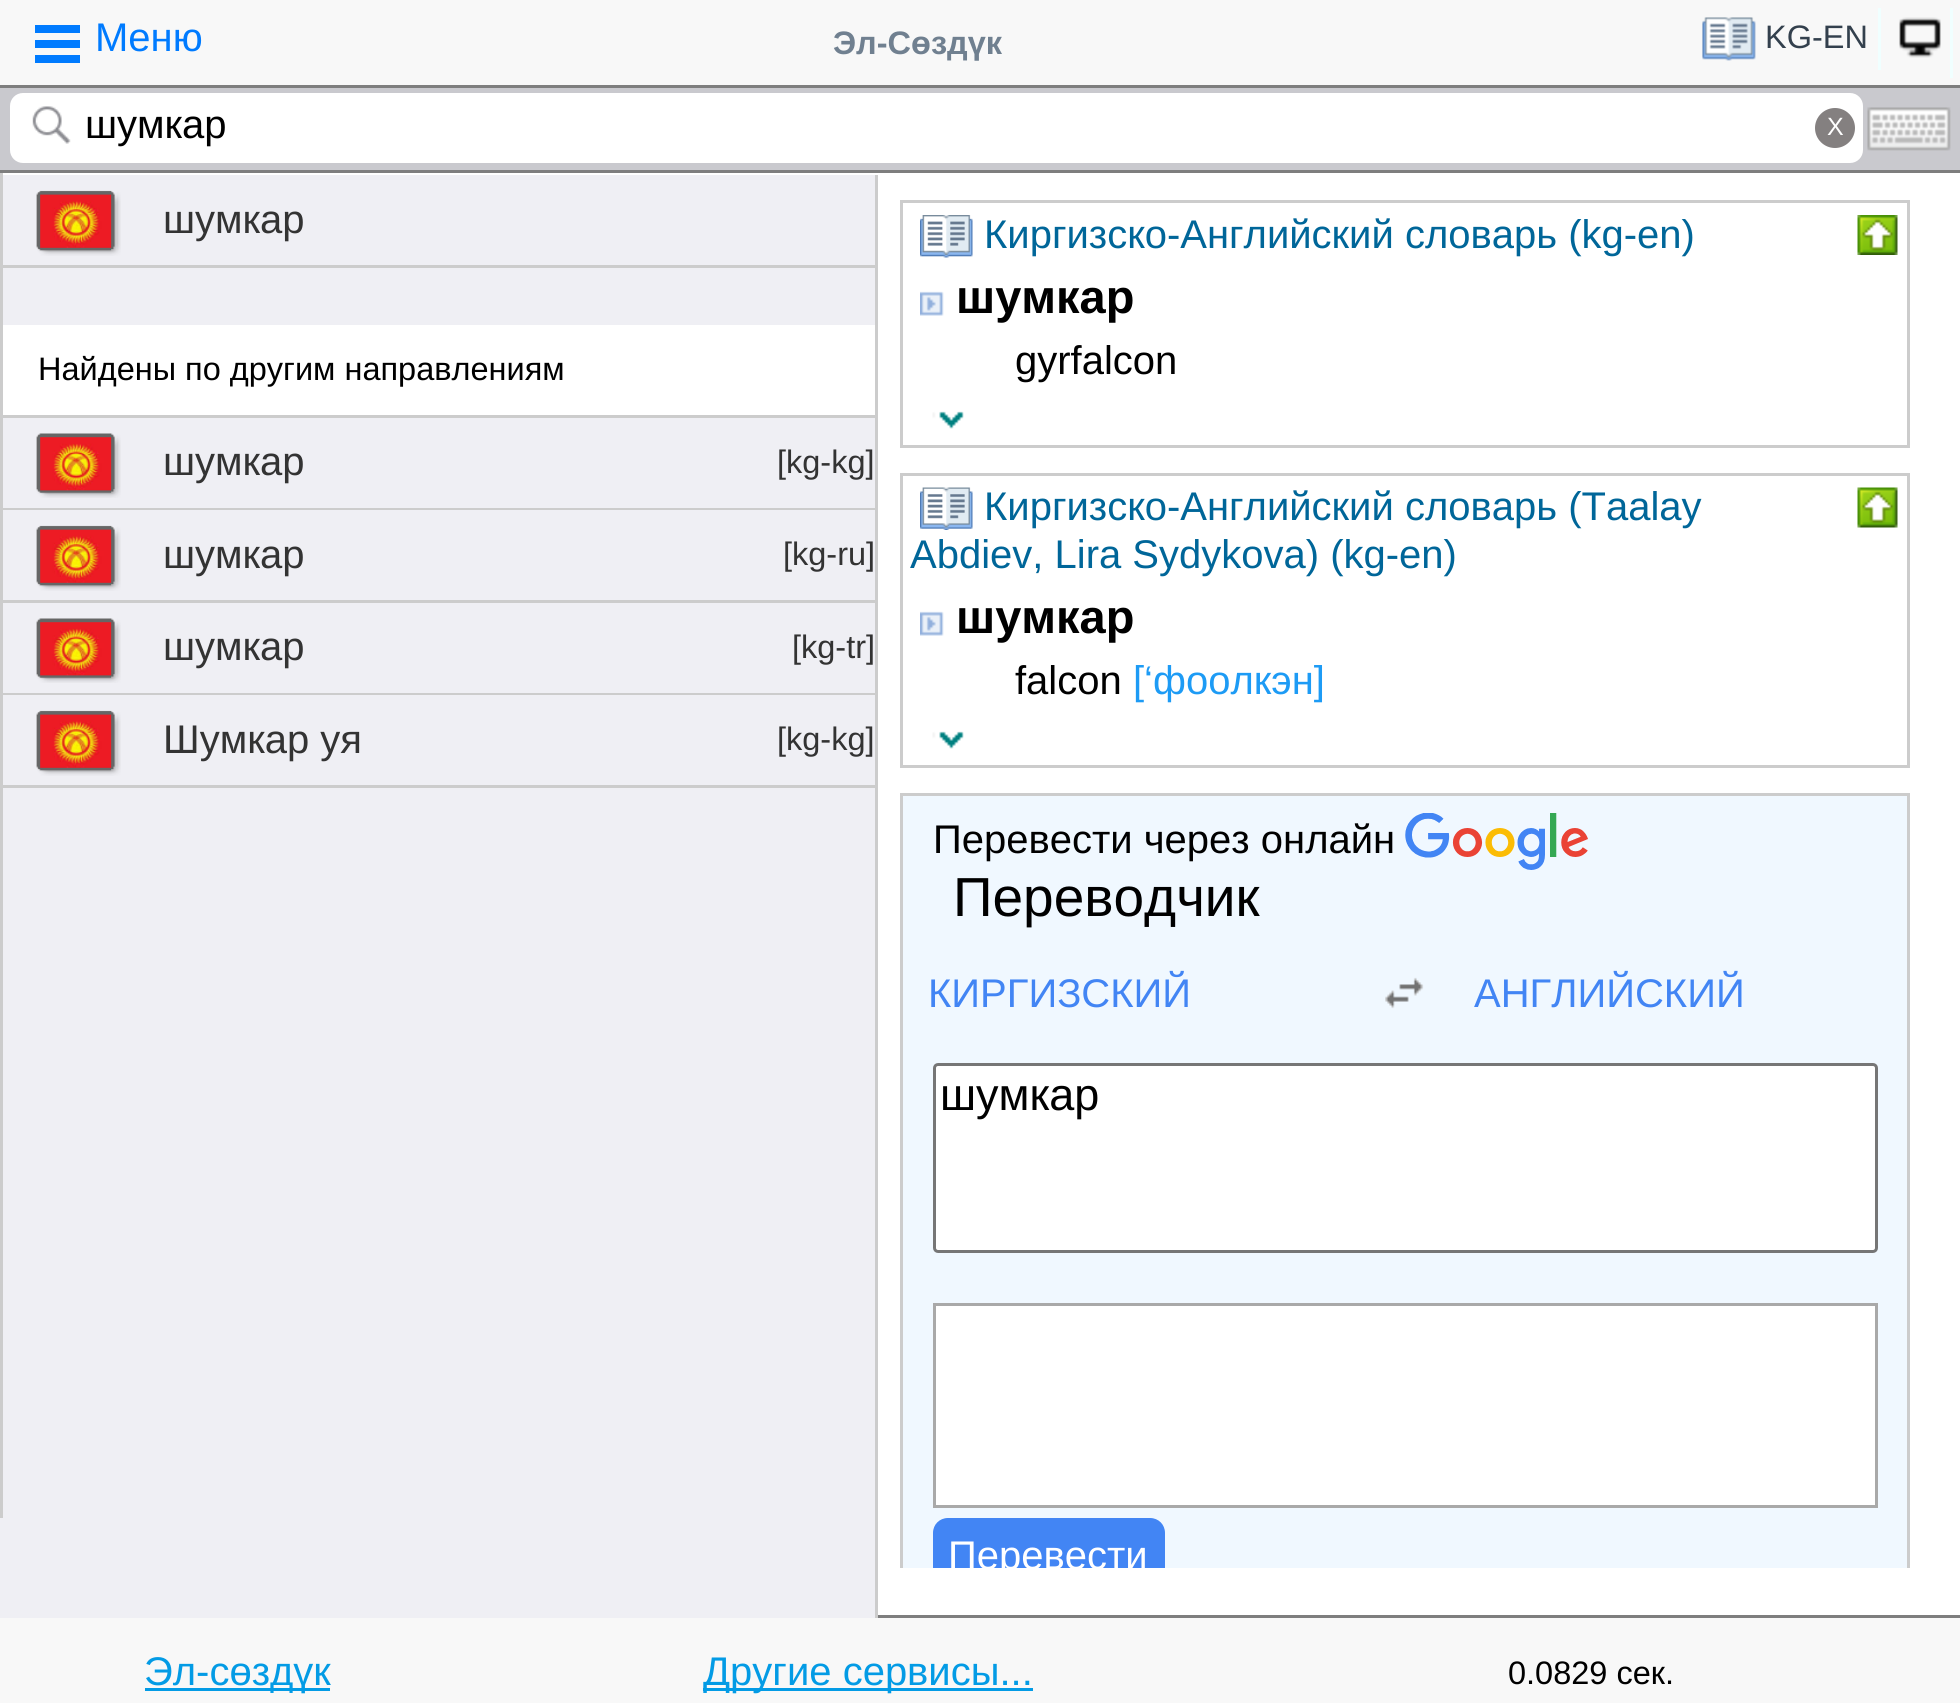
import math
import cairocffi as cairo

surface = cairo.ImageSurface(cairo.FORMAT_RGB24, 1960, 1703)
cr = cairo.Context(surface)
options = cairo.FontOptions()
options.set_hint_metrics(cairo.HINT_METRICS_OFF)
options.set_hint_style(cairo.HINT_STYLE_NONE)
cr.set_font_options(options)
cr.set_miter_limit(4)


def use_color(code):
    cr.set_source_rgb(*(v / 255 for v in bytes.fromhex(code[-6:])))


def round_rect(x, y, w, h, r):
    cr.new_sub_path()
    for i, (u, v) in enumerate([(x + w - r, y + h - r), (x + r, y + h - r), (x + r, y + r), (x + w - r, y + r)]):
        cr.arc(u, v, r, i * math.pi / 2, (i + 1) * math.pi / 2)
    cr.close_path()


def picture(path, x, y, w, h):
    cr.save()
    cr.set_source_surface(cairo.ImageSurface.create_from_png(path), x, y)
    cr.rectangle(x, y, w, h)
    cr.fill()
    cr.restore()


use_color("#ffffff")
cr.paint()
use_color("#f8f8f8")
cr.rectangle(0, 0, 1960, 85)
cr.fill()
use_color("#7e7e7e")
cr.rectangle(0, 85, 1960, 3)
cr.fill()
use_color("#007bff")
cr.rectangle(35, 25, 45, 8)
cr.fill()
cr.rectangle(35, 40, 45, 8)
cr.fill()
cr.rectangle(35, 55, 45, 8)
cr.fill()
cr.select_font_face("Liberation Sans")
cr.set_font_size(40)
cr.move_to(95, 51)
cr.show_text("Меню")
cr.select_font_face("Liberation Sans", cairo.FONT_SLANT_NORMAL, cairo.FONT_WEIGHT_BOLD)
cr.set_font_size(32.5)
use_color("#708090")
cr.move_to(833, 54)
cr.show_text("Эл-Сөздүк")
use_color("#f0ffff")
cr.rectangle(1878, 8, 3, 62)
cr.fill()
picture("img1.png", 1702, 17, 54, 44)
cr.select_font_face("Liberation Sans")
use_color("#33404d")
cr.move_to(1765, 48)
cr.show_text("KG-EN")
use_color("#f0ffff")
cr.rectangle(1950, 8, 3, 70)
cr.fill()
picture("img2.png", 1899, 17, 42, 41)
use_color("#c9c9ce")
cr.rectangle(0, 88, 1960, 82)
cr.fill()
use_color("#7e7e7e")
cr.rectangle(0, 170, 1960, 3)
cr.fill()
use_color("#ffffff")
round_rect(10, 93, 1853, 70, 13)
cr.fill()
picture("img3.png", 32, 106, 39, 38)
cr.set_font_size(40)
use_color("#000000")
cr.move_to(85, 138)
cr.show_text("шумкар")
use_color("#848080")
cr.new_path()
cr.arc(1835, 128, 20, 0, 2 * math.pi)
cr.fill()
cr.set_font_size(25)
use_color("#ffffff")
cr.move_to(1827, 135)
cr.show_text("X")
picture("img4.png", 1867, 107, 84, 44)
use_color("#efeff4")
cr.rectangle(0, 175, 875, 1443)
cr.fill()
use_color("#cccccc")
cr.rectangle(0, 265, 875, 3)
cr.fill()
cr.rectangle(0, 415, 875, 3)
cr.fill()
cr.rectangle(0, 508, 875, 2)
cr.fill()
cr.rectangle(0, 600, 875, 3)
cr.fill()
cr.rectangle(0, 693, 875, 2)
cr.fill()
cr.rectangle(0, 785, 875, 3)
cr.fill()
cr.rectangle(0, 173, 3, 1345)
cr.fill()
cr.rectangle(875, 175, 3, 1443)
cr.fill()
picture("img5.png", 36, 190, 85, 66)
cr.set_font_size(40)
use_color("#333333")
cr.move_to(163, 233)
cr.show_text("шумкар")
use_color("#ffffff")
cr.rectangle(3, 325, 872, 90)
cr.fill()
cr.set_font_size(32.5)
use_color("#000000")
cr.move_to(38, 380)
cr.show_text("Найдены по другим направлениям")
picture("img6.png", 36, 433, 85, 65)
cr.set_font_size(40)
use_color("#333333")
cr.move_to(163, 475)
cr.show_text("шумкар")
cr.set_font_size(32.5)
cr.move_to(777, 473)
cr.show_text("[kg-kg]")
picture("img5.png", 36, 525, 85, 66)
cr.set_font_size(40)
cr.move_to(163, 568)
cr.show_text("шумкар")
cr.set_font_size(32.5)
cr.move_to(783, 565)
cr.show_text("[kg-ru]")
picture("img6.png", 36, 618, 85, 65)
cr.set_font_size(40)
cr.move_to(163, 660)
cr.show_text("шумкар")
cr.set_font_size(32.5)
cr.move_to(792, 658)
cr.show_text("[kg-tr]")
picture("img5.png", 36, 710, 85, 66)
cr.set_font_size(40)
cr.move_to(163, 753)
cr.show_text("Шумкар уя")
cr.set_font_size(32.5)
cr.move_to(777, 750)
cr.show_text("[kg-kg]")
cr.rectangle(901.5, 201.5, 1007, 245)
use_color("#cccccc")
cr.set_line_width(3)
cr.stroke()
picture("img7.png", 920, 215, 53, 43)
cr.set_font_size(40)
use_color("#006699")
cr.move_to(984, 248)
cr.show_text("Киргизско-Английский словарь (kg-en)")
picture("img8.png", 1857, 215, 41, 40)
picture("img9.png", 920, 291, 24, 25)
cr.select_font_face("Liberation Sans", cairo.FONT_SLANT_NORMAL, cairo.FONT_WEIGHT_BOLD)
cr.set_font_size(47)
use_color("#000000")
cr.move_to(956, 313)
cr.show_text("шумкар")
cr.select_font_face("Liberation Sans")
cr.set_font_size(40)
cr.move_to(1015, 374)
cr.show_text("gyrfalcon")
picture("img10.png", 932, 411, 32, 18)
cr.rectangle(901.5, 474.5, 1007, 292)
use_color("#cccccc")
cr.stroke()
picture("img11.png", 920, 487, 53, 43)
use_color("#006699")
cr.move_to(984, 520)
cr.show_text("Киргизско-Английский словарь (Taalay")
cr.move_to(910, 568)
cr.show_text("Abdiev, Lira Sydykova) (kg-en)")
picture("img12.png", 1857, 487, 41, 41)
picture("img13.png", 920, 611, 24, 25)
cr.select_font_face("Liberation Sans", cairo.FONT_SLANT_NORMAL, cairo.FONT_WEIGHT_BOLD)
cr.set_font_size(47)
use_color("#000000")
cr.move_to(956, 633)
cr.show_text("шумкар")
cr.select_font_face("Liberation Sans")
cr.set_font_size(40)
cr.move_to(1015, 694)
cr.show_text("falcon")
use_color("#1d9bf5")
cr.move_to(1133, 694)
cr.show_text("[‘фоолкэн]")
picture("img10.png", 932, 731, 32, 18)
use_color("#f0f8ff")
cr.rectangle(903, 796, 1004, 772)
cr.fill()
cr.save()
cr.rectangle(875, 175, 1060, 1393)
cr.clip()
cr.rectangle(901.5, 794.5, 1007, 819)
use_color("#cccccc")
cr.stroke()
cr.restore()
use_color("#000000")
cr.move_to(933, 853)
cr.show_text("Перевести через онлайн")
picture("img14.png", 1405, 813, 183, 57)
cr.set_font_size(55)
cr.move_to(953, 916)
cr.show_text("Переводчик")
cr.set_font_size(40)
use_color("#4285f4")
cr.move_to(928, 1007)
cr.show_text("КИРГИЗСКИЙ")
picture("img15.png", 1385, 977, 39, 32)
cr.move_to(1474, 1007)
cr.show_text("АНГЛИЙСКИЙ")
use_color("#ffffff")
round_rect(934.5, 1064.5, 942, 187, 3.5)
cr.fill_preserve()
use_color("#767676")
cr.stroke()
cr.set_font_size(45)
use_color("#000000")
cr.move_to(940, 1110)
cr.show_text("шумкар")
use_color("#ffffff")
cr.rectangle(934.5, 1304.5, 942, 202)
cr.fill_preserve()
use_color("#a9a9a9")
cr.stroke()
use_color("#4285f4")
cr.new_path()
cr.move_to(948, 1518)
cr.line_to(1150, 1518)
cr.curve_to(1158.5, 1518, 1165, 1524.5, 1165, 1533)
cr.line_to(1165, 1568)
cr.line_to(933, 1568)
cr.line_to(933, 1533)
cr.curve_to(933, 1524.5, 939.5, 1518, 948, 1518)
cr.close_path()
cr.fill()
cr.save()
cr.rectangle(875, 175, 1060, 1393)
cr.clip()
cr.set_font_size(40)
use_color("#ffffff")
cr.move_to(948, 1569)
cr.show_text("Перевести")
cr.restore()
use_color("#f8f8f8")
cr.rectangle(0, 1618, 1960, 85)
cr.fill()
use_color("#7e7e7e")
cr.rectangle(878, 1615, 1082, 3)
cr.fill()
use_color("#039be5")
cr.rectangle(145, 1688, 185, 3)
cr.fill()
cr.set_font_size(40)
cr.move_to(144, 1685)
cr.show_text("Эл-сөздүк")
cr.rectangle(703, 1688, 330, 3)
cr.fill()
cr.move_to(703, 1685)
cr.show_text("Другие сервисы...")
cr.set_font_size(32.5)
use_color("#000000")
cr.move_to(1508, 1684)
cr.show_text("0.0829 сек.")
surface.write_to_png("result.png")
